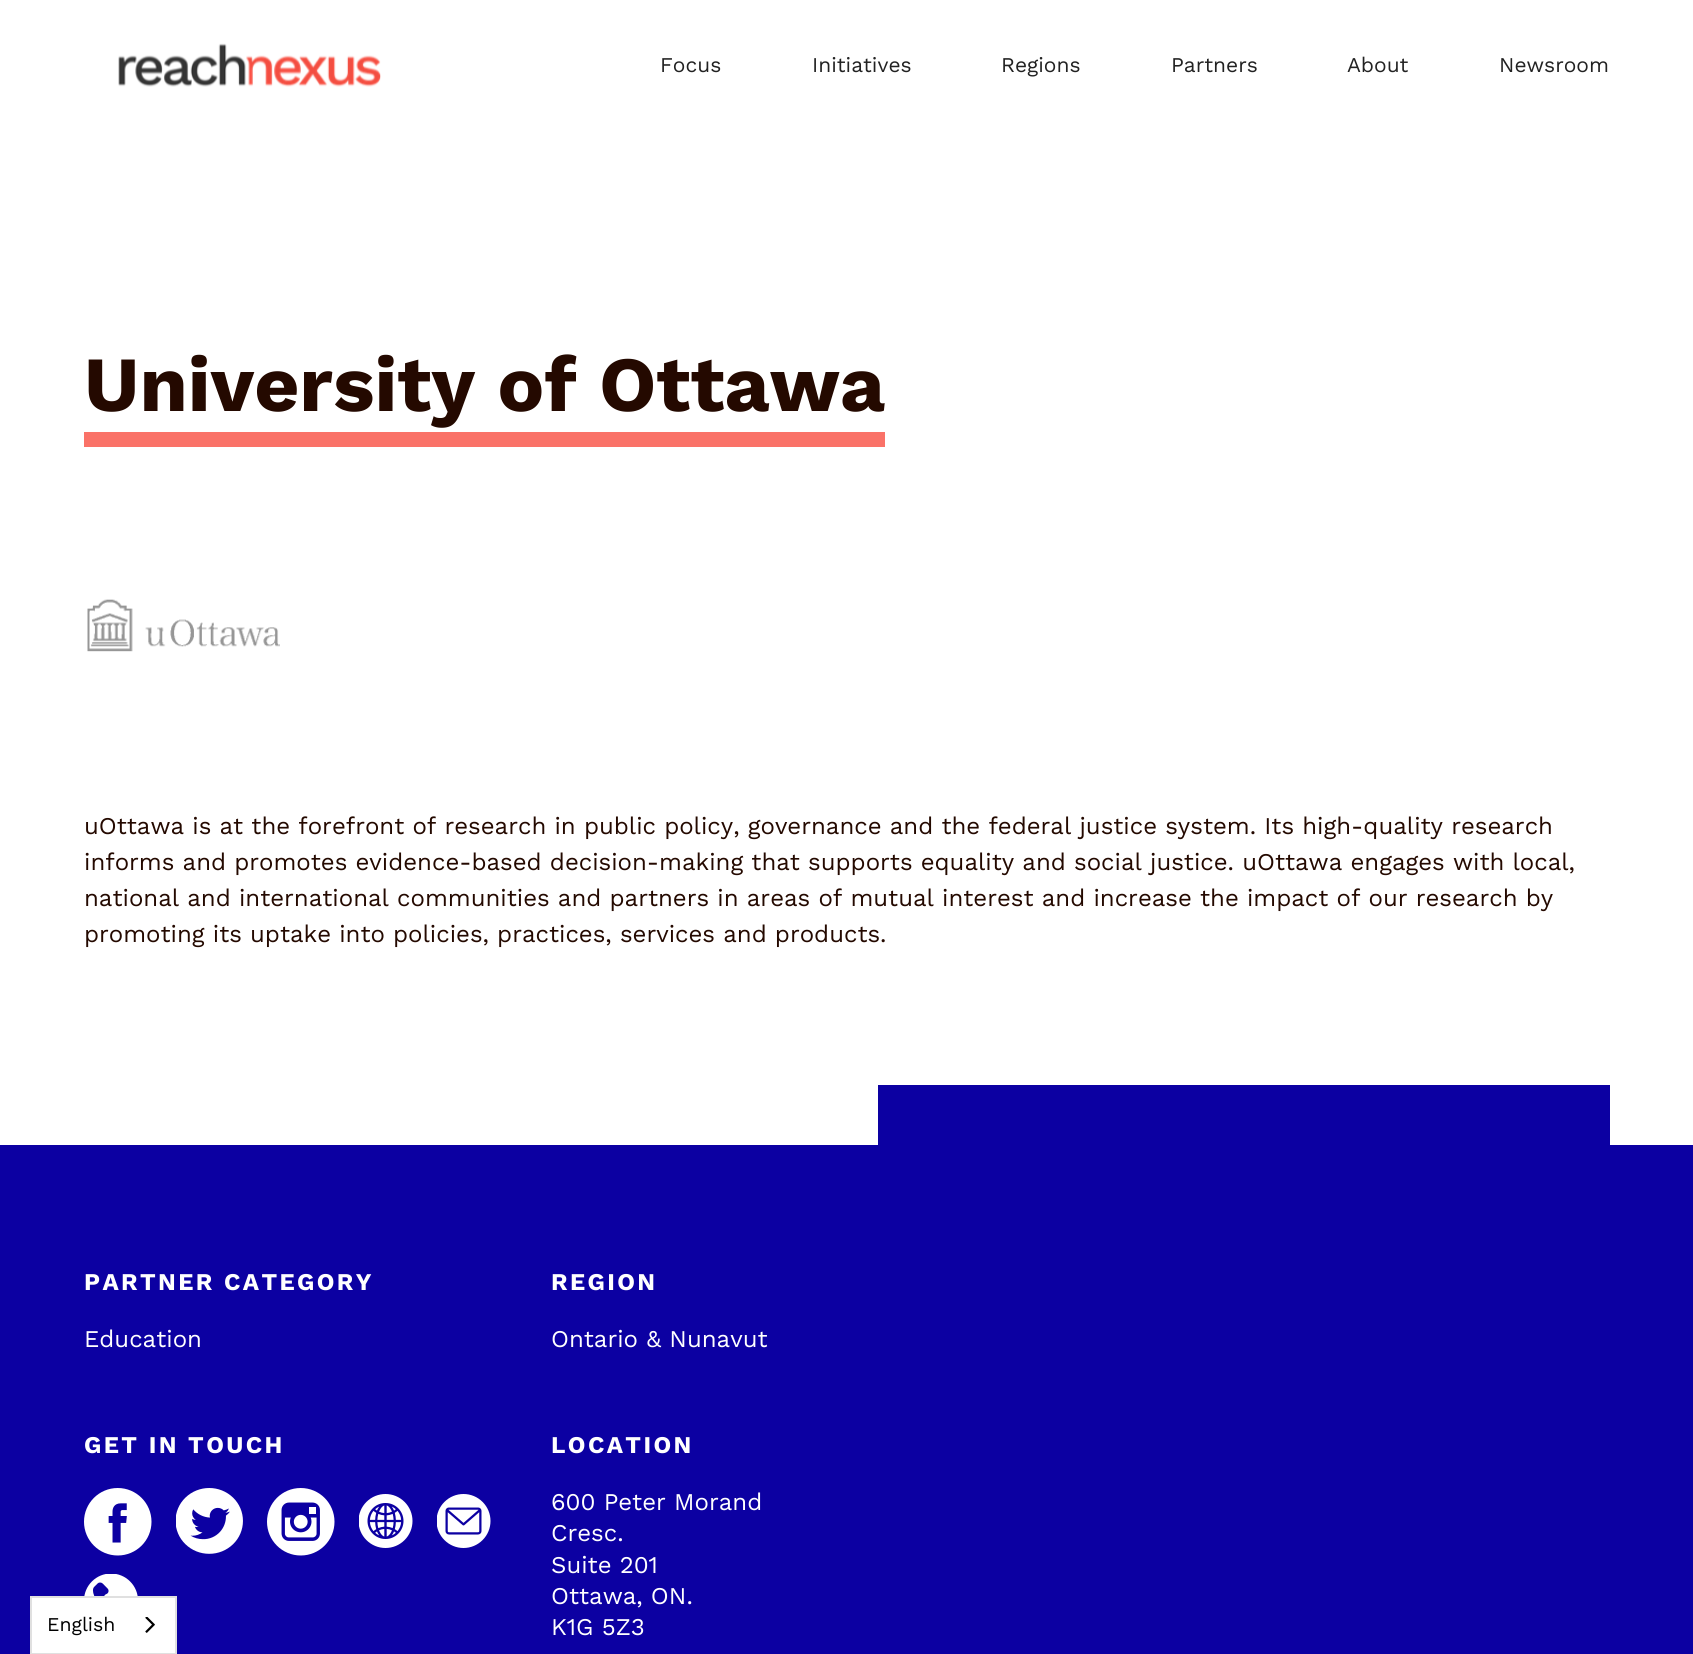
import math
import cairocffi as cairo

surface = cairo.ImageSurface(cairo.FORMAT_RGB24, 1693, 1654)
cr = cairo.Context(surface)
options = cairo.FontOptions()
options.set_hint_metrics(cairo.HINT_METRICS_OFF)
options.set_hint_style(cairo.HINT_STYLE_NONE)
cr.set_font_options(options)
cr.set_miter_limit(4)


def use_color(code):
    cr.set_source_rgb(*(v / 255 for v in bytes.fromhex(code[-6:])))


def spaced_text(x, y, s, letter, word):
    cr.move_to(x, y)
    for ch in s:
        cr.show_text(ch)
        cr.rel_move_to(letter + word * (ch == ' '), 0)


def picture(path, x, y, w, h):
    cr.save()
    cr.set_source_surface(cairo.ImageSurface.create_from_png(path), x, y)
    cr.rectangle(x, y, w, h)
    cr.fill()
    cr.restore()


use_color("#ffffff")
cr.paint()
picture("img1.png", 118, 43, 263, 44)
cr.select_font_face("Work Sans")
cr.set_font_size(21)
use_color("#222222")
cr.move_to(660, 72)
cr.show_text("Focus")
cr.move_to(812, 72)
cr.show_text("Initiatives")
cr.move_to(1001, 72)
cr.show_text("Regions")
cr.move_to(1171, 72)
cr.show_text("Partners")
cr.move_to(1347, 72)
cr.show_text("About")
cr.move_to(1499, 72)
cr.show_text("Newsroom")
use_color("#0c00a2")
cr.rectangle(0, 1145, 1693, 509)
cr.fill()
use_color("#ffffff")
cr.rectangle(31, 1597, 145, 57)
cr.fill_preserve()
use_color("#e0e0e0")
cr.stroke()
cr.set_font_size(19.5)
use_color("#000000")
cr.move_to(47, 1631)
cr.show_text("English")
picture("img2.png", 145, 1617, 10, 16)
cr.select_font_face("Work Sans", cairo.FONT_SLANT_NORMAL, cairo.FONT_WEIGHT_BOLD)
cr.set_font_size(78)
use_color("#240900")
cr.move_to(84, 411)
cr.show_text("University of Ottawa")
use_color("#fa7268")
cr.rectangle(84, 432, 801, 15)
cr.fill()
picture("img3.png", 87, 599, 193, 53)
cr.select_font_face("Work Sans")
cr.set_font_size(24)
use_color("#240900")
cr.move_to(84, 834)
cr.show_text("uOttawa is at the forefront of research in public policy, governance and the federal justice system. Its high-quality research")
cr.move_to(84, 870)
cr.show_text("informs and promotes evidence-based decision-making that supports equality and social justice. uOttawa engages with local,")
cr.move_to(84, 906)
cr.show_text("national and international communities and partners in areas of mutual interest and increase the impact of our research by")
cr.move_to(84, 942)
cr.show_text("promoting its uptake into policies, practices, services and products.")
use_color("#0c00a2")
cr.rectangle(878, 1085, 732, 60)
cr.fill()
cr.select_font_face("Work Sans", cairo.FONT_SLANT_NORMAL, cairo.FONT_WEIGHT_BOLD)
use_color("#ffffff")
spaced_text(84, 1290, "PARTNER CATEGORY", 2.4, 0)
cr.select_font_face("Work Sans")
cr.move_to(84, 1347)
cr.show_text("Education")
cr.select_font_face("Work Sans", cairo.FONT_SLANT_NORMAL, cairo.FONT_WEIGHT_BOLD)
spaced_text(84, 1453, "GET IN TOUCH", 2.4, 0)
picture("img4.png", 84, 1488, 68, 68)
picture("img5.png", 176, 1488, 67, 66)
picture("img6.png", 267, 1488, 68, 68)
picture("img7.png", 359, 1494, 54, 54)
picture("img8.png", 437, 1494, 54, 54)
picture("img9.png", 84, 1574, 54, 22)
spaced_text(551, 1290, "REGION", 2.4, 0)
cr.select_font_face("Work Sans")
cr.move_to(551, 1347)
cr.show_text("Ontario & Nunavut")
cr.select_font_face("Work Sans", cairo.FONT_SLANT_NORMAL, cairo.FONT_WEIGHT_BOLD)
spaced_text(551, 1453, "LOCATION", 2.4, 0)
cr.select_font_face("Work Sans")
cr.move_to(551, 1510)
cr.show_text("600 Peter Morand")
cr.move_to(551, 1541)
cr.show_text("Cresc.")
cr.move_to(551, 1573)
cr.show_text("Suite 201")
cr.move_to(551, 1604)
cr.show_text("Ottawa, ON.")
cr.move_to(551, 1635)
cr.show_text("K1G 5Z3")
surface.write_to_png("result.png")
